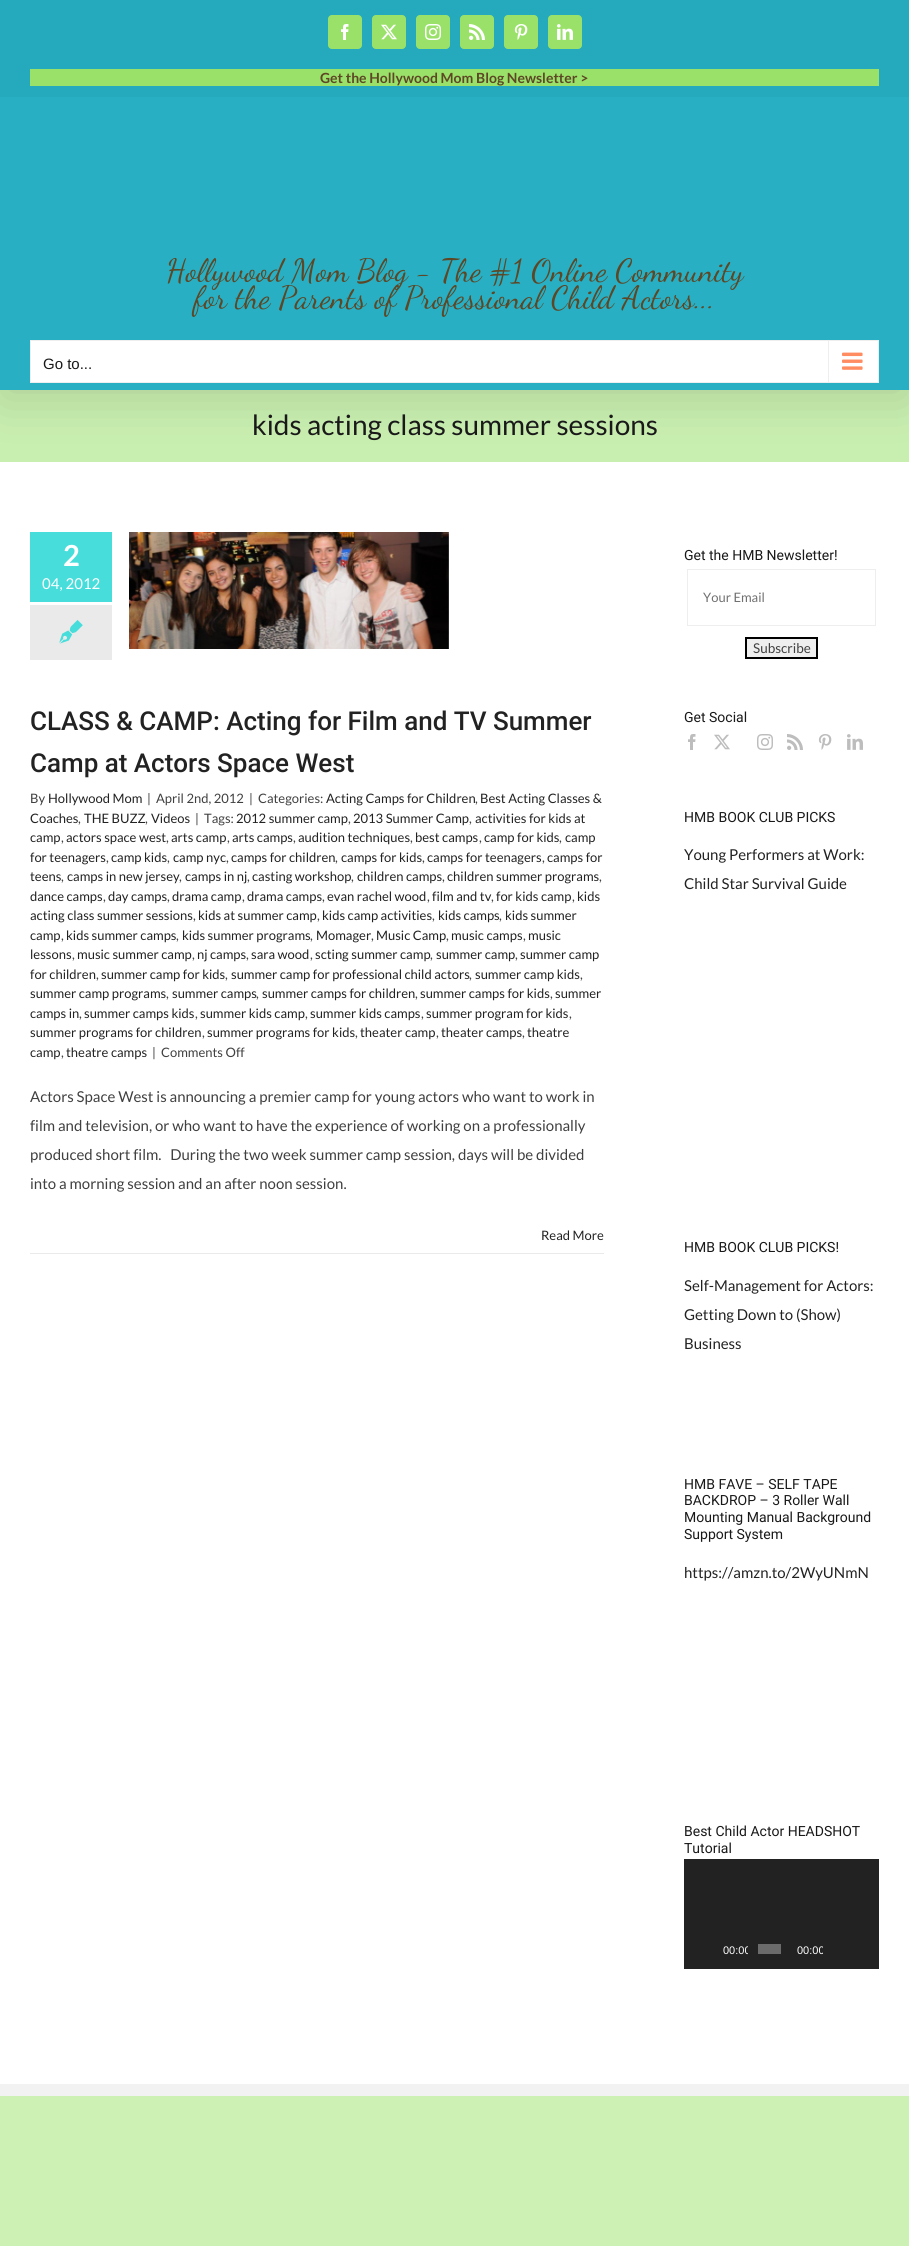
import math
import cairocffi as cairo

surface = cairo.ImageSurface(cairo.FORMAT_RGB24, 909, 2246)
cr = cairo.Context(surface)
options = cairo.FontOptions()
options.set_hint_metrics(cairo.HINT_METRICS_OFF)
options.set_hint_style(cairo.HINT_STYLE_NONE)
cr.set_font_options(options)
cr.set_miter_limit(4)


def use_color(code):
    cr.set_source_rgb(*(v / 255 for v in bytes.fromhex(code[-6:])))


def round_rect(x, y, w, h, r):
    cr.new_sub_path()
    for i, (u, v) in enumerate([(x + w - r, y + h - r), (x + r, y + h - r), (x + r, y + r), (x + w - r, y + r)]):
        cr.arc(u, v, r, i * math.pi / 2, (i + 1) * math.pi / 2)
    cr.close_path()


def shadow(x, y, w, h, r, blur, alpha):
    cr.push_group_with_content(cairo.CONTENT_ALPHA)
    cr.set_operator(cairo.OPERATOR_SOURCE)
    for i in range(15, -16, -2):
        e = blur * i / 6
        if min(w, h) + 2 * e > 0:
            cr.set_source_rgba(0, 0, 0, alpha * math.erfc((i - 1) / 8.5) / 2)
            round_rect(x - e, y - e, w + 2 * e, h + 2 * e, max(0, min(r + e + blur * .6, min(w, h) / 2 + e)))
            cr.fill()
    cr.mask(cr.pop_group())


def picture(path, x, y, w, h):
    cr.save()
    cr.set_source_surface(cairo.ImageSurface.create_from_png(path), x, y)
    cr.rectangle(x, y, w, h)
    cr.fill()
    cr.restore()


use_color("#ffffff")
cr.paint()
use_color("#c9efb0")
cr.rectangle(0, 390, 909, 72)
cr.fill()
use_color("#000000")
shadow(2, 12, 905, 386, 0, 25, 0.14)
use_color("#25a9bd")
cr.rectangle(0, 0, 909, 97)
cr.fill()
use_color("#9ae169")
round_rect(328.5, 15.5, 33, 33, 3.5)
cr.fill_preserve()
cr.set_line_width(1)
cr.stroke()
picture("img1.png", 341, 24, 8, 16)
round_rect(372.5, 15.5, 33, 33, 3.5)
cr.fill_preserve()
cr.stroke()
picture("img2.png", 381, 24, 16, 16)
round_rect(416.5, 15.5, 33, 33, 3.5)
cr.fill_preserve()
cr.stroke()
picture("img3.png", 425, 24, 16, 16)
round_rect(460.5, 15.5, 33, 33, 3.5)
cr.fill_preserve()
cr.stroke()
picture("img4.png", 469, 24, 16, 16)
round_rect(504.5, 15.5, 33, 33, 3.5)
cr.fill_preserve()
cr.stroke()
picture("img5.png", 514, 24, 14, 16)
round_rect(548.5, 15.5, 33, 33, 3.5)
cr.fill_preserve()
cr.stroke()
picture("img6.png", 557, 24, 16, 16)
cr.rectangle(30, 69, 849, 17)
cr.fill()
cr.select_font_face("Lato", cairo.FONT_SLANT_NORMAL, cairo.FONT_WEIGHT_BOLD)
cr.set_font_size(14)
use_color("#5d4725")
cr.move_to(320, 83)
cr.show_text("Get the Hollywood Mom Blog Newsletter >")
use_color("#28afc3")
cr.rectangle(0, 97, 909, 293)
cr.fill()
cr.select_font_face("Dancing Script")
cr.set_font_size(32)
use_color("#5d4725")
cr.move_to(166, 281)
cr.show_text("Hollywood Mom Blog - The #1 Online Community")
cr.move_to(194, 308)
cr.show_text("for the Parents of Professional Child Actors...")
use_color("#ffffff")
cr.rectangle(30.5, 340.5, 848, 42)
cr.fill_preserve()
use_color("#eeeeee")
cr.stroke()
cr.select_font_face("Liberation Sans")
cr.set_font_size(15)
use_color("#191919")
cr.move_to(43, 369)
cr.show_text("Go to...")
use_color("#eeeeee")
cr.rectangle(828, 341, 1, 41)
cr.fill()
picture("img7.png", 842, 352, 21, 18)
cr.select_font_face("Lato")
cr.set_font_size(28)
use_color("#191919")
cr.move_to(252, 435)
cr.show_text("kids acting class summer sessions")
use_color("#46dddb")
cr.rectangle(30, 532, 82, 70)
cr.fill()
cr.select_font_face("Lato", cairo.FONT_SLANT_NORMAL, cairo.FONT_WEIGHT_BOLD)
cr.set_font_size(29)
use_color("#ffffff")
cr.move_to(63, 566)
cr.show_text("2")
cr.select_font_face("Lato")
cr.set_font_size(15)
cr.move_to(42, 589)
cr.show_text("04, 2012")
use_color("#eaeaea")
cr.rectangle(30, 605, 82, 55)
cr.fill()
picture("img8.png", 59, 620, 24, 24)
picture("img9.png", 129, 532, 320, 117)
cr.select_font_face("Roboto Medium")
cr.set_font_size(26)
use_color("#222222")
cr.move_to(30, 730)
cr.show_text("CLASS & CAMP: Acting for Film and TV Summer")
cr.move_to(30, 772)
cr.show_text("Camp at Actors Space West")
cr.select_font_face("Lato")
cr.set_font_size(13)
use_color("#404040")
cr.move_to(30, 803)
cr.show_text("By")
use_color("#222222")
cr.move_to(48, 803)
cr.show_text("Hollywood Mom")
use_color("#404040")
cr.move_to(147, 803)
cr.show_text("|")
cr.move_to(156, 803)
cr.show_text("April 2nd, 2012")
cr.move_to(249, 803)
cr.show_text("|")
cr.move_to(258, 803)
cr.show_text("Categories:")
use_color("#222222")
cr.move_to(326, 803)
cr.show_text("Acting Camps for Children")
use_color("#404040")
cr.move_to(475, 803)
cr.show_text(",")
use_color("#222222")
cr.move_to(480, 803)
cr.show_text("Best Acting Classes &")
cr.move_to(30, 823)
cr.show_text("Coaches")
use_color("#404040")
cr.move_to(78, 823)
cr.show_text(",")
use_color("#222222")
cr.move_to(84, 823)
cr.show_text("THE BUZZ")
use_color("#404040")
cr.move_to(145, 823)
cr.show_text(",")
use_color("#222222")
cr.move_to(151, 823)
cr.show_text("Videos")
use_color("#404040")
cr.move_to(195, 823)
cr.show_text("|")
cr.move_to(204, 823)
cr.show_text("Tags:")
use_color("#222222")
cr.move_to(236, 823)
cr.show_text("2012 summer camp")
use_color("#404040")
cr.move_to(348, 823)
cr.show_text(",")
use_color("#222222")
cr.move_to(353, 823)
cr.show_text("2013 Summer Camp")
use_color("#404040")
cr.move_to(469, 823)
cr.show_text(",")
use_color("#222222")
cr.move_to(475, 823)
cr.show_text("activities for kids at")
cr.move_to(30, 842)
cr.show_text("camp")
use_color("#404040")
cr.move_to(61, 842)
cr.show_text(",")
use_color("#222222")
cr.move_to(66, 842)
cr.show_text("actors space west")
use_color("#404040")
cr.move_to(166, 842)
cr.show_text(",")
use_color("#222222")
cr.move_to(171, 842)
cr.show_text("arts camp")
use_color("#404040")
cr.move_to(227, 842)
cr.show_text(",")
use_color("#222222")
cr.move_to(232, 842)
cr.show_text("arts camps")
use_color("#404040")
cr.move_to(293, 842)
cr.show_text(",")
use_color("#222222")
cr.move_to(298, 842)
cr.show_text("audition techniques")
use_color("#404040")
cr.move_to(410, 842)
cr.show_text(",")
use_color("#222222")
cr.move_to(415, 842)
cr.show_text("best camps")
use_color("#404040")
cr.move_to(479, 842)
cr.show_text(",")
use_color("#222222")
cr.move_to(484, 842)
cr.show_text("camp for kids")
use_color("#404040")
cr.move_to(559, 842)
cr.show_text(",")
use_color("#222222")
cr.move_to(565, 842)
cr.show_text("camp")
cr.move_to(30, 862)
cr.show_text("for teenagers")
use_color("#404040")
cr.move_to(106, 862)
cr.show_text(",")
use_color("#222222")
cr.move_to(111, 862)
cr.show_text("camp kids")
use_color("#404040")
cr.move_to(167, 862)
cr.show_text(",")
use_color("#222222")
cr.move_to(173, 862)
cr.show_text("camp nyc")
use_color("#404040")
cr.move_to(226, 862)
cr.show_text(",")
use_color("#222222")
cr.move_to(231, 862)
cr.show_text("camps for children")
use_color("#404040")
cr.move_to(335, 862)
cr.show_text(",")
use_color("#222222")
cr.move_to(341, 862)
cr.show_text("camps for kids")
use_color("#404040")
cr.move_to(422, 862)
cr.show_text(",")
use_color("#222222")
cr.move_to(427, 862)
cr.show_text("camps for teenagers")
use_color("#404040")
cr.move_to(542, 862)
cr.show_text(",")
use_color("#222222")
cr.move_to(547, 862)
cr.show_text("camps for")
cr.move_to(30, 881)
cr.show_text("teens")
use_color("#404040")
cr.move_to(61, 881)
cr.show_text(",")
use_color("#222222")
cr.move_to(67, 881)
cr.show_text("camps in new jersey")
use_color("#404040")
cr.move_to(179, 881)
cr.show_text(",")
use_color("#222222")
cr.move_to(185, 881)
cr.show_text("camps in nj")
use_color("#404040")
cr.move_to(247, 881)
cr.show_text(",")
use_color("#222222")
cr.move_to(252, 881)
cr.show_text("casting workshop")
use_color("#404040")
cr.move_to(351, 881)
cr.show_text(",")
use_color("#222222")
cr.move_to(357, 881)
cr.show_text("children camps")
use_color("#404040")
cr.move_to(442, 881)
cr.show_text(",")
use_color("#222222")
cr.move_to(447, 881)
cr.show_text("children summer programs")
use_color("#404040")
cr.move_to(599, 881)
cr.show_text(",")
use_color("#222222")
cr.move_to(30, 901)
cr.show_text("dance camps")
use_color("#404040")
cr.move_to(103, 901)
cr.show_text(",")
use_color("#222222")
cr.move_to(108, 901)
cr.show_text("day camps")
use_color("#404040")
cr.move_to(167, 901)
cr.show_text(",")
use_color("#222222")
cr.move_to(172, 901)
cr.show_text("drama camp")
use_color("#404040")
cr.move_to(242, 901)
cr.show_text(",")
use_color("#222222")
cr.move_to(247, 901)
cr.show_text("drama camps")
use_color("#404040")
cr.move_to(322, 901)
cr.show_text(",")
use_color("#222222")
cr.move_to(327, 901)
cr.show_text("evan rachel wood")
use_color("#404040")
cr.move_to(427, 901)
cr.show_text(",")
use_color("#222222")
cr.move_to(432, 901)
cr.show_text("film and tv")
use_color("#404040")
cr.move_to(491, 901)
cr.show_text(",")
use_color("#222222")
cr.move_to(496, 901)
cr.show_text("for kids camp")
use_color("#404040")
cr.move_to(572, 901)
cr.show_text(",")
use_color("#222222")
cr.move_to(577, 901)
cr.show_text("kids")
cr.move_to(30, 920)
cr.show_text("acting class summer sessions")
use_color("#404040")
cr.move_to(193, 920)
cr.show_text(",")
use_color("#222222")
cr.move_to(198, 920)
cr.show_text("kids at summer camp")
use_color("#404040")
cr.move_to(317, 920)
cr.show_text(",")
use_color("#222222")
cr.move_to(322, 920)
cr.show_text("kids camp activities")
use_color("#404040")
cr.move_to(432, 920)
cr.show_text(",")
use_color("#222222")
cr.move_to(438, 920)
cr.show_text("kids camps")
use_color("#404040")
cr.move_to(499, 920)
cr.show_text(",")
use_color("#222222")
cr.move_to(505, 920)
cr.show_text("kids summer")
cr.move_to(30, 940)
cr.show_text("camp")
use_color("#404040")
cr.move_to(61, 940)
cr.show_text(",")
use_color("#222222")
cr.move_to(66, 940)
cr.show_text("kids summer camps")
use_color("#404040")
cr.move_to(176, 940)
cr.show_text(",")
use_color("#222222")
cr.move_to(182, 940)
cr.show_text("kids summer programs")
use_color("#404040")
cr.move_to(310, 940)
cr.show_text(",")
use_color("#222222")
cr.move_to(316, 940)
cr.show_text("Momager")
use_color("#404040")
cr.move_to(371, 940)
cr.show_text(",")
use_color("#222222")
cr.move_to(376, 940)
cr.show_text("Music Camp")
use_color("#404040")
cr.move_to(446, 940)
cr.show_text(",")
use_color("#222222")
cr.move_to(451, 940)
cr.show_text("music camps")
use_color("#404040")
cr.move_to(523, 940)
cr.show_text(",")
use_color("#222222")
cr.move_to(528, 940)
cr.show_text("music")
cr.move_to(30, 959)
cr.show_text("lessons")
use_color("#404040")
cr.move_to(72, 959)
cr.show_text(",")
use_color("#222222")
cr.move_to(77, 959)
cr.show_text("music summer camp")
use_color("#404040")
cr.move_to(192, 959)
cr.show_text(",")
use_color("#222222")
cr.move_to(197, 959)
cr.show_text("nj camps")
use_color("#404040")
cr.move_to(246, 959)
cr.show_text(",")
use_color("#222222")
cr.move_to(251, 959)
cr.show_text("sara wood")
use_color("#404040")
cr.move_to(310, 959)
cr.show_text(",")
use_color("#222222")
cr.move_to(315, 959)
cr.show_text("scting summer camp")
use_color("#404040")
cr.move_to(430, 959)
cr.show_text(",")
use_color("#222222")
cr.move_to(436, 959)
cr.show_text("summer camp")
use_color("#404040")
cr.move_to(515, 959)
cr.show_text(",")
use_color("#222222")
cr.move_to(520, 959)
cr.show_text("summer camp")
cr.move_to(30, 979)
cr.show_text("for children")
use_color("#404040")
cr.move_to(96, 979)
cr.show_text(",")
use_color("#222222")
cr.move_to(101, 979)
cr.show_text("summer camp for kids")
use_color("#404040")
cr.move_to(225, 979)
cr.show_text(",")
use_color("#222222")
cr.move_to(231, 979)
cr.show_text("summer camp for professional child actors")
use_color("#404040")
cr.move_to(469, 979)
cr.show_text(",")
use_color("#222222")
cr.move_to(475, 979)
cr.show_text("summer camp kids")
use_color("#404040")
cr.move_to(580, 979)
cr.show_text(",")
use_color("#222222")
cr.move_to(30, 998)
cr.show_text("summer camp programs")
use_color("#404040")
cr.move_to(166, 998)
cr.show_text(",")
use_color("#222222")
cr.move_to(172, 998)
cr.show_text("summer camps")
use_color("#404040")
cr.move_to(256, 998)
cr.show_text(",")
use_color("#222222")
cr.move_to(262, 998)
cr.show_text("summer camps for children")
use_color("#404040")
cr.move_to(415, 998)
cr.show_text(",")
use_color("#222222")
cr.move_to(420, 998)
cr.show_text("summer camps for kids")
use_color("#404040")
cr.move_to(550, 998)
cr.show_text(",")
use_color("#222222")
cr.move_to(555, 998)
cr.show_text("summer")
cr.move_to(30, 1018)
cr.show_text("camps in")
use_color("#404040")
cr.move_to(79, 1018)
cr.show_text(",")
use_color("#222222")
cr.move_to(84, 1018)
cr.show_text("summer camps kids")
use_color("#404040")
cr.move_to(195, 1018)
cr.show_text(",")
use_color("#222222")
cr.move_to(200, 1018)
cr.show_text("summer kids camp")
use_color("#404040")
cr.move_to(305, 1018)
cr.show_text(",")
use_color("#222222")
cr.move_to(310, 1018)
cr.show_text("summer kids camps")
use_color("#404040")
cr.move_to(421, 1018)
cr.show_text(",")
use_color("#222222")
cr.move_to(426, 1018)
cr.show_text("summer program for kids")
use_color("#404040")
cr.move_to(569, 1018)
cr.show_text(",")
use_color("#222222")
cr.move_to(30, 1037)
cr.show_text("summer programs for children")
use_color("#404040")
cr.move_to(202, 1037)
cr.show_text(",")
use_color("#222222")
cr.move_to(207, 1037)
cr.show_text("summer programs for kids")
use_color("#404040")
cr.move_to(355, 1037)
cr.show_text(",")
use_color("#222222")
cr.move_to(360, 1037)
cr.show_text("theater camp")
use_color("#404040")
cr.move_to(436, 1037)
cr.show_text(",")
use_color("#222222")
cr.move_to(441, 1037)
cr.show_text("theater camps")
use_color("#404040")
cr.move_to(522, 1037)
cr.show_text(",")
use_color("#222222")
cr.move_to(527, 1037)
cr.show_text("theatre")
cr.move_to(30, 1057)
cr.show_text("camp")
use_color("#404040")
cr.move_to(61, 1057)
cr.show_text(",")
use_color("#222222")
cr.move_to(66, 1057)
cr.show_text("theatre camps")
use_color("#404040")
cr.move_to(152, 1057)
cr.show_text("|")
cr.move_to(161, 1057)
cr.show_text("Comments Off")
cr.set_font_size(15)
cr.move_to(30, 1102)
cr.show_text("Actors Space West is announcing a premier camp for young actors who want to work in")
cr.move_to(30, 1131)
cr.show_text("film and television, or who want to have the experience of working on a professionally")
cr.move_to(30, 1160)
cr.show_text("produced short film.   During the two week summer camp session, days will be divided")
cr.move_to(30, 1189)
cr.show_text("into a morning session and an after noon session.")
use_color("#eaeaea")
cr.rectangle(30, 1253, 574, 1)
cr.fill()
cr.set_font_size(13)
use_color("#222222")
cr.move_to(541, 1240)
cr.show_text("Read More")
cr.select_font_face("Roboto")
cr.set_font_size(14)
use_color("#191919")
cr.move_to(684, 560)
cr.show_text("Get the HMB Newsletter!")
cr.rectangle(687.5, 569.5, 188, 56)
use_color("#eeeeee")
cr.stroke()
cr.select_font_face("Lato")
cr.set_font_size(13)
use_color("#707070")
cr.move_to(703, 602)
cr.show_text("Your Email")
use_color("#efefef")
cr.rectangle(746, 638, 71, 20)
cr.fill_preserve()
use_color("#000000")
cr.set_line_width(2)
cr.stroke()
cr.set_font_size(13.5)
use_color("#404040")
cr.move_to(753, 653)
cr.show_text("Subscribe")
cr.select_font_face("Roboto")
cr.set_font_size(14)
use_color("#191919")
cr.move_to(684, 722)
cr.show_text("Get Social")
picture("img10.png", 688, 734, 8, 16)
picture("img11.png", 714, 734, 16, 16)
picture("img12.png", 757, 734, 16, 16)
picture("img13.png", 787, 734, 16, 16)
picture("img14.png", 818, 734, 14, 16)
picture("img15.png", 847, 734, 16, 16)
cr.move_to(684, 822)
cr.show_text("HMB BOOK CLUB PICKS")
cr.select_font_face("Lato")
cr.set_font_size(15)
use_color("#222222")
cr.move_to(684, 860)
cr.show_text("Young Performers at Work:")
cr.move_to(684, 889)
cr.show_text("Child Star Survival Guide")
cr.select_font_face("Roboto")
cr.set_font_size(14)
use_color("#191919")
cr.move_to(684, 1252)
cr.show_text("HMB BOOK CLUB PICKS!")
cr.select_font_face("Lato")
cr.set_font_size(15)
use_color("#222222")
cr.move_to(684, 1291)
cr.show_text("Self-Management for Actors:")
cr.move_to(684, 1320)
cr.show_text("Getting Down to (Show)")
cr.move_to(684, 1349)
cr.show_text("Business")
cr.select_font_face("Roboto")
cr.set_font_size(14)
use_color("#191919")
cr.move_to(684, 1489)
cr.show_text("HMB FAVE – SELF TAPE")
cr.move_to(684, 1505)
cr.show_text("BACKDROP – 3 Roller Wall")
cr.move_to(684, 1522)
cr.show_text("Mounting Manual Background")
cr.move_to(684, 1539)
cr.show_text("Support System")
cr.select_font_face("Lato")
cr.set_font_size(15)
use_color("#222222")
cr.move_to(684, 1578)
cr.show_text("https://amzn.to/2WyUNmN")
cr.select_font_face("Roboto")
cr.set_font_size(14)
use_color("#191919")
cr.move_to(684, 1836)
cr.show_text("Best Child Actor HEADSHOT")
cr.move_to(684, 1853)
cr.show_text("Tutorial")
use_color("#222222")
cr.rectangle(684, 1859, 195, 110)
cr.fill()
cr.save()
cr.rectangle(717, 1929, 31, 40)
cr.clip()
cr.select_font_face("Liberation Sans")
cr.set_font_size(11)
use_color("#ffffff")
cr.move_to(723, 1954)
cr.show_text("00:00")
cr.restore()
use_color("#6b6b6b")
cr.rectangle(758, 1944, 23, 10)
cr.fill()
cr.save()
cr.rectangle(791, 1929, 32, 40)
cr.clip()
cr.select_font_face("Liberation Sans")
cr.set_font_size(11)
use_color("#ffffff")
cr.move_to(797, 1954)
cr.show_text("00:00")
cr.restore()
use_color("#cdf0b4")
cr.rectangle(0, 2096, 909, 150)
cr.fill()
use_color("#f2f2f2")
cr.rectangle(0, 2084, 909, 12)
cr.fill()
surface.write_to_png("result.png")
